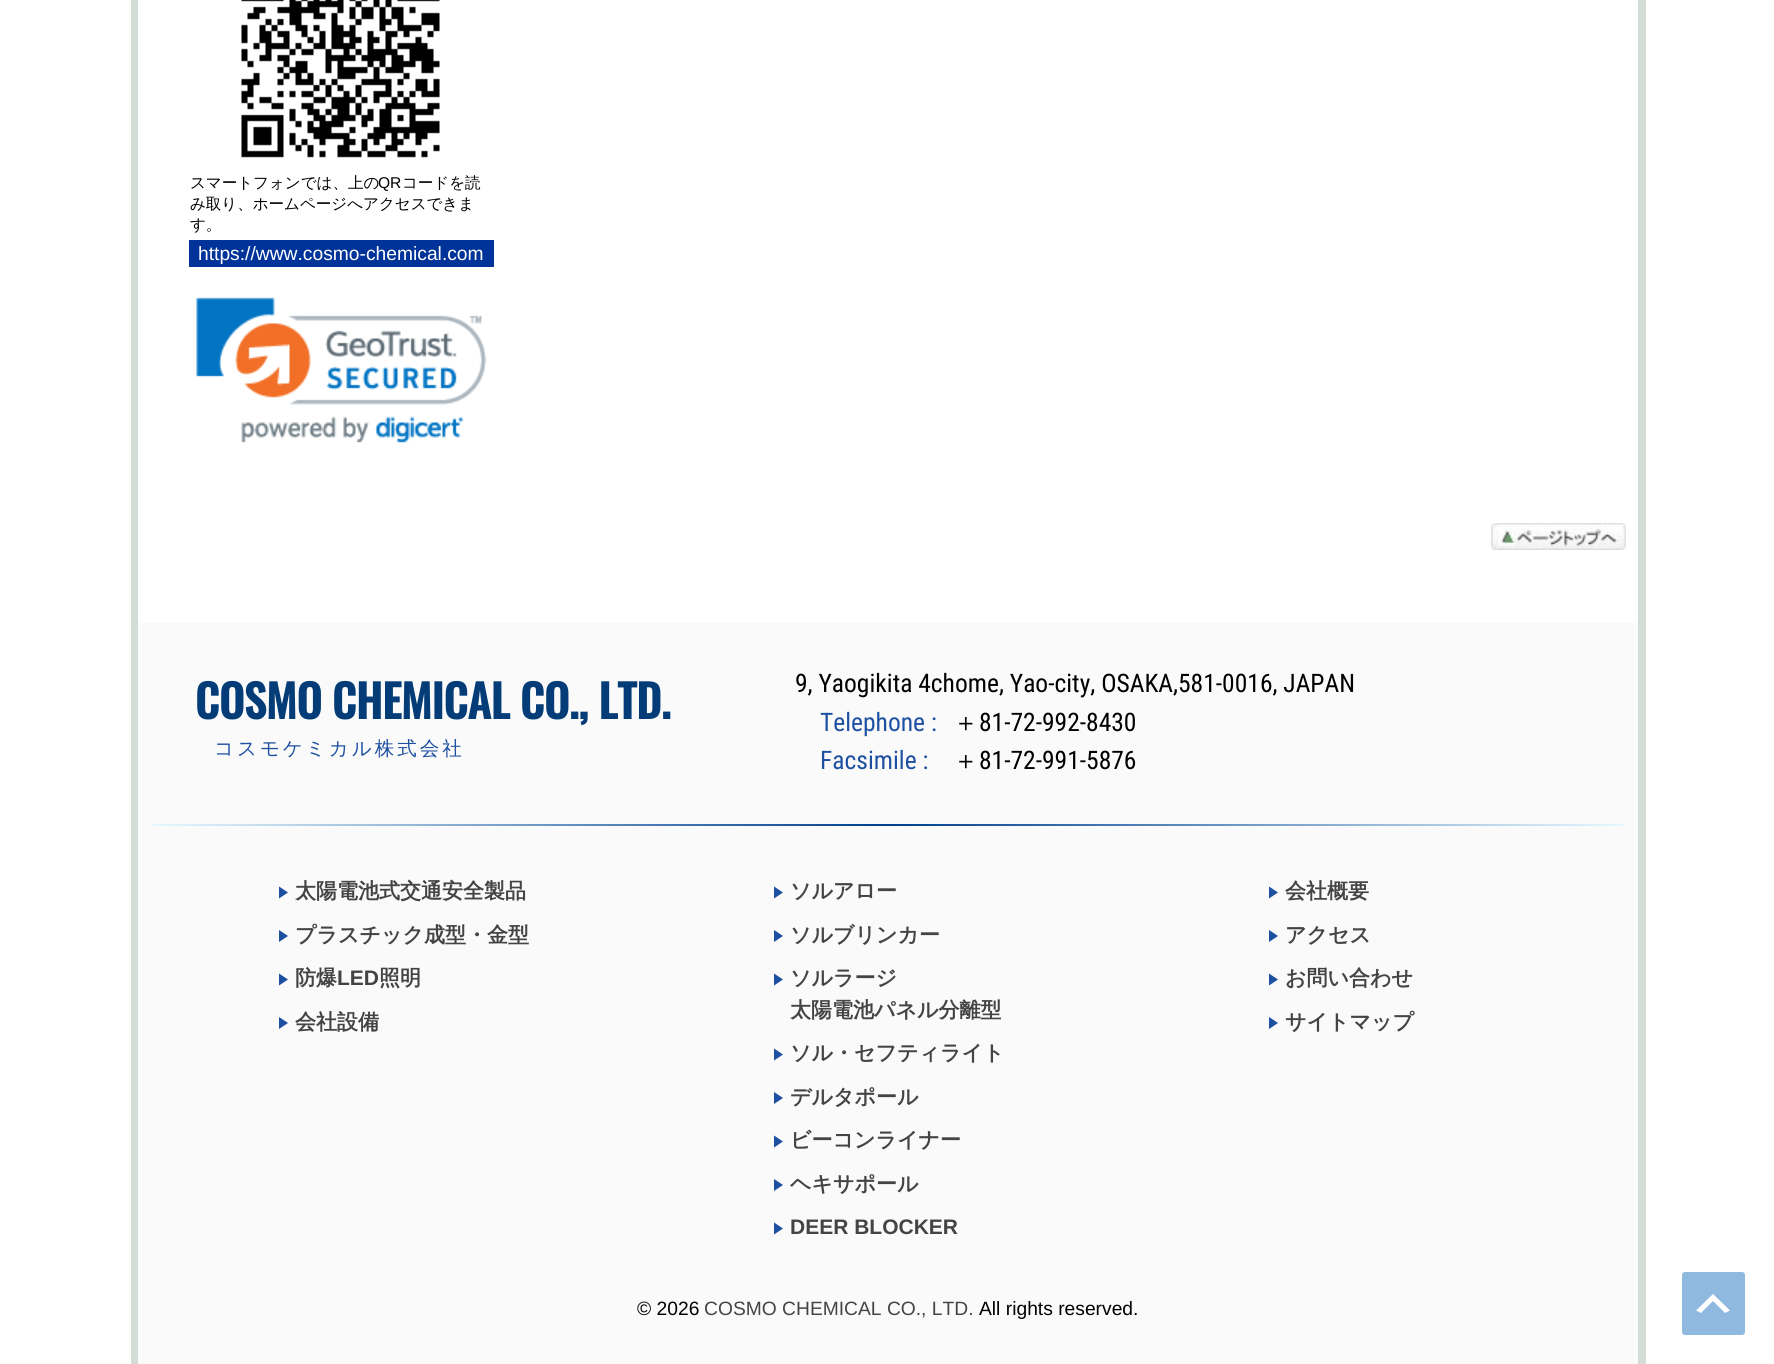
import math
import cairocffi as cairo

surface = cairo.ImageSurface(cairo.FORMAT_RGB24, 1774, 1364)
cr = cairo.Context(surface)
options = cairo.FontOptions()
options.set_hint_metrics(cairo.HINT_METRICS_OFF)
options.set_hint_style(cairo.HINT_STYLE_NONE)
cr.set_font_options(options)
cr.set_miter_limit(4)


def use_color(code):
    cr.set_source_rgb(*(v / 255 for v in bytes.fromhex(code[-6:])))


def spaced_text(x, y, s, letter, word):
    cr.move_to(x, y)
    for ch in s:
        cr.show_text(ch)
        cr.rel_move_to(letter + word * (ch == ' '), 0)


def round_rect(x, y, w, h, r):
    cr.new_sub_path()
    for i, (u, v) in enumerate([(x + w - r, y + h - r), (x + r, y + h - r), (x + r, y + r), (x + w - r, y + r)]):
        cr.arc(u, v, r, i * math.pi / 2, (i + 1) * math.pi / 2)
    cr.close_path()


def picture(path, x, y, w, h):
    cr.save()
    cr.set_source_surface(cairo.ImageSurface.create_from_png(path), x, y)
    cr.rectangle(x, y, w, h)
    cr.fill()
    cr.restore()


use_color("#ffffff")
cr.paint()
use_color("#d4dcd6")
cr.rectangle(1638, 0, 8, 1364)
cr.fill()
cr.rectangle(131, 0, 7, 1364)
cr.fill()
picture("img1.png", 241, 0, 199, 158)
cr.select_font_face("WenQuanYi Zen Hei Medium")
cr.set_font_size(15.6)
use_color("#000000")
spaced_text(190, 188, "スマートフォンでは、上の", -0.1, 0)
cr.select_font_face("Liberation Sans")
spaced_text(378, 188, "QR", -0.1, 0)
cr.select_font_face("WenQuanYi Zen Hei Medium")
spaced_text(402, 188, "コードを読", -0.1, 0)
spaced_text(190, 209, "み取り、ホームページへアクセスできま", -0.1, 0)
spaced_text(190, 230, "す。", -0.1, 0)
use_color("#003399")
cr.rectangle(189, 240, 305, 27)
cr.fill()
cr.select_font_face("Liberation Sans")
cr.set_font_size(19.25)
use_color("#ffffff")
cr.move_to(198, 260)
cr.show_text("https://www.cosmo-chemical.com")
picture("img2.png", 196, 297, 291, 146)
picture("img3.png", 1491, 523, 135, 27)
use_color("#fafafa")
cr.rectangle(138, 623, 1500, 741)
cr.fill()
cr.select_font_face("Oswald", cairo.FONT_SLANT_NORMAL, cairo.FONT_WEIGHT_BOLD)
cr.set_font_size(45)
use_color("#043c78")
spaced_text(195, 719, "COSMO CHEMICAL CO., LTD.", -0.3, 0)
cr.select_font_face("WenQuanYi Zen Hei Medium")
cr.set_font_size(19.5)
use_color("#1e50a2")
spaced_text(214, 755, "コスモケミカル株式会社", 3, 0)
cr.select_font_face("Roboto Condensed")
cr.set_font_size(25.5)
use_color("#000000")
cr.move_to(795, 692)
cr.show_text("9, Yaogikita 4chome, Yao-city, OSAKA,581-0016, JAPAN")
use_color("#1e50a2")
cr.move_to(820, 731)
cr.show_text("Telephone :")
cr.select_font_face("WenQuanYi Zen Hei Medium")
use_color("#000000")
cr.move_to(953, 731)
cr.show_text("＋")
cr.select_font_face("Roboto Condensed")
cr.move_to(979, 731)
cr.show_text("81-72-992-8430")
use_color("#1e50a2")
cr.move_to(820, 769)
cr.show_text("Facsimile :")
cr.select_font_face("WenQuanYi Zen Hei Medium")
use_color("#000000")
cr.move_to(953, 769)
cr.show_text("＋")
cr.select_font_face("Roboto Condensed")
cr.move_to(979, 769)
cr.show_text("81-72-991-5876")
gradient = cairo.LinearGradient(153, 824, 1623, 824)
gradient.add_color_stop_rgba(0, 0.902, 0.973, 1, 1)
gradient.add_color_stop_rgba(0.5, 0, 0.247, 0.557, 1)
gradient.add_color_stop_rgba(1, 0.902, 0.973, 1, 1)
cr.set_source(gradient)
cr.rectangle(153, 824, 1470, 2)
cr.fill()
use_color("#1e50a2")
cr.new_path()
cr.move_to(279, 898.5)
cr.line_to(279, 886.5)
cr.line_to(288, 892.5)
cr.close_path()
cr.fill()
cr.select_font_face("WenQuanYi Zen Hei", cairo.FONT_SLANT_NORMAL, cairo.FONT_WEIGHT_BOLD)
cr.set_font_size(21)
use_color("#444444")
cr.move_to(295, 898)
cr.show_text("太陽電池式交通安全製品")
use_color("#1e50a2")
cr.new_path()
cr.move_to(279, 942)
cr.line_to(279, 930)
cr.line_to(288, 936)
cr.close_path()
cr.fill()
use_color("#444444")
cr.move_to(295, 942)
cr.show_text("プラスチック成型・金型")
use_color("#1e50a2")
cr.new_path()
cr.move_to(279, 985.5)
cr.line_to(279, 973.5)
cr.line_to(288, 979.5)
cr.close_path()
cr.fill()
use_color("#444444")
cr.move_to(295, 985)
cr.show_text("防爆")
cr.select_font_face("Liberation Sans", cairo.FONT_SLANT_NORMAL, cairo.FONT_WEIGHT_BOLD)
cr.move_to(337, 985)
cr.show_text("LED")
cr.select_font_face("WenQuanYi Zen Hei", cairo.FONT_SLANT_NORMAL, cairo.FONT_WEIGHT_BOLD)
cr.move_to(379, 985)
cr.show_text("照明")
use_color("#1e50a2")
cr.new_path()
cr.move_to(279, 1029)
cr.line_to(279, 1017)
cr.line_to(288, 1023)
cr.close_path()
cr.fill()
use_color("#444444")
cr.move_to(295, 1029)
cr.show_text("会社設備")
use_color("#1e50a2")
cr.new_path()
cr.move_to(774, 898.5)
cr.line_to(774, 886.5)
cr.line_to(783, 892.5)
cr.close_path()
cr.fill()
use_color("#444444")
cr.move_to(790, 898)
cr.show_text("ソルアロー")
use_color("#1e50a2")
cr.new_path()
cr.move_to(774, 942)
cr.line_to(774, 930)
cr.line_to(783, 936)
cr.close_path()
cr.fill()
use_color("#444444")
cr.move_to(790, 942)
cr.show_text("ソルブリンカー")
use_color("#1e50a2")
cr.new_path()
cr.move_to(774, 985.5)
cr.line_to(774, 973.5)
cr.line_to(783, 979.5)
cr.close_path()
cr.fill()
use_color("#444444")
cr.move_to(790, 985)
cr.show_text("ソルラージ")
cr.move_to(790, 1017)
cr.show_text("太陽電池パネル分離型")
use_color("#1e50a2")
cr.new_path()
cr.move_to(774, 1060.5)
cr.line_to(774, 1048.5)
cr.line_to(783, 1054.5)
cr.close_path()
cr.fill()
use_color("#444444")
cr.move_to(790, 1060)
cr.show_text("ソル・セフティライト")
use_color("#1e50a2")
cr.new_path()
cr.move_to(774, 1104)
cr.line_to(774, 1092)
cr.line_to(783, 1098)
cr.close_path()
cr.fill()
use_color("#444444")
cr.move_to(790, 1104)
cr.show_text("デルタポール")
use_color("#1e50a2")
cr.new_path()
cr.move_to(774, 1147.5)
cr.line_to(774, 1135.5)
cr.line_to(783, 1141.5)
cr.close_path()
cr.fill()
use_color("#444444")
cr.move_to(790, 1147)
cr.show_text("ビーコンライナー")
use_color("#1e50a2")
cr.new_path()
cr.move_to(774, 1191)
cr.line_to(774, 1179)
cr.line_to(783, 1185)
cr.close_path()
cr.fill()
use_color("#444444")
cr.move_to(790, 1191)
cr.show_text("ヘキサポール")
use_color("#1e50a2")
cr.new_path()
cr.move_to(774, 1234.5)
cr.line_to(774, 1222.5)
cr.line_to(783, 1228.5)
cr.close_path()
cr.fill()
cr.select_font_face("Liberation Sans", cairo.FONT_SLANT_NORMAL, cairo.FONT_WEIGHT_BOLD)
use_color("#444444")
cr.move_to(790, 1234)
cr.show_text("DEER BLOCKER")
use_color("#1e50a2")
cr.new_path()
cr.move_to(1269, 898.5)
cr.line_to(1269, 886.5)
cr.line_to(1278, 892.5)
cr.close_path()
cr.fill()
cr.select_font_face("WenQuanYi Zen Hei", cairo.FONT_SLANT_NORMAL, cairo.FONT_WEIGHT_BOLD)
use_color("#444444")
cr.move_to(1285, 898)
cr.show_text("会社概要")
use_color("#1e50a2")
cr.new_path()
cr.move_to(1269, 942)
cr.line_to(1269, 930)
cr.line_to(1278, 936)
cr.close_path()
cr.fill()
use_color("#444444")
cr.move_to(1285, 942)
cr.show_text("アクセス")
use_color("#1e50a2")
cr.new_path()
cr.move_to(1269, 985.5)
cr.line_to(1269, 973.5)
cr.line_to(1278, 979.5)
cr.close_path()
cr.fill()
use_color("#444444")
cr.move_to(1285, 985)
cr.show_text("お問い合わせ")
use_color("#1e50a2")
cr.new_path()
cr.move_to(1269, 1029)
cr.line_to(1269, 1017)
cr.line_to(1278, 1023)
cr.close_path()
cr.fill()
use_color("#444444")
cr.move_to(1285, 1029)
cr.show_text("サイトマップ")
cr.select_font_face("Liberation Sans")
cr.set_font_size(19.25)
use_color("#000000")
cr.move_to(637, 1315)
cr.show_text("© 2026")
use_color("#444444")
cr.move_to(704, 1315)
cr.show_text("COSMO CHEMICAL CO., LTD.")
use_color("#000000")
cr.move_to(979, 1315)
cr.show_text("All rights reserved.")
use_color("#8fb9df")
round_rect(1682, 1272, 63, 63, 3)
cr.fill()
use_color("#ffffff")
cr.new_path()
cr.move_to(1725, 1313)
cr.line_to(1713, 1301)
cr.line_to(1701, 1313)
cr.line_to(1696, 1310.5)
cr.line_to(1713, 1294)
cr.line_to(1730, 1310.5)
cr.close_path()
cr.fill()
surface.write_to_png("result.png")
